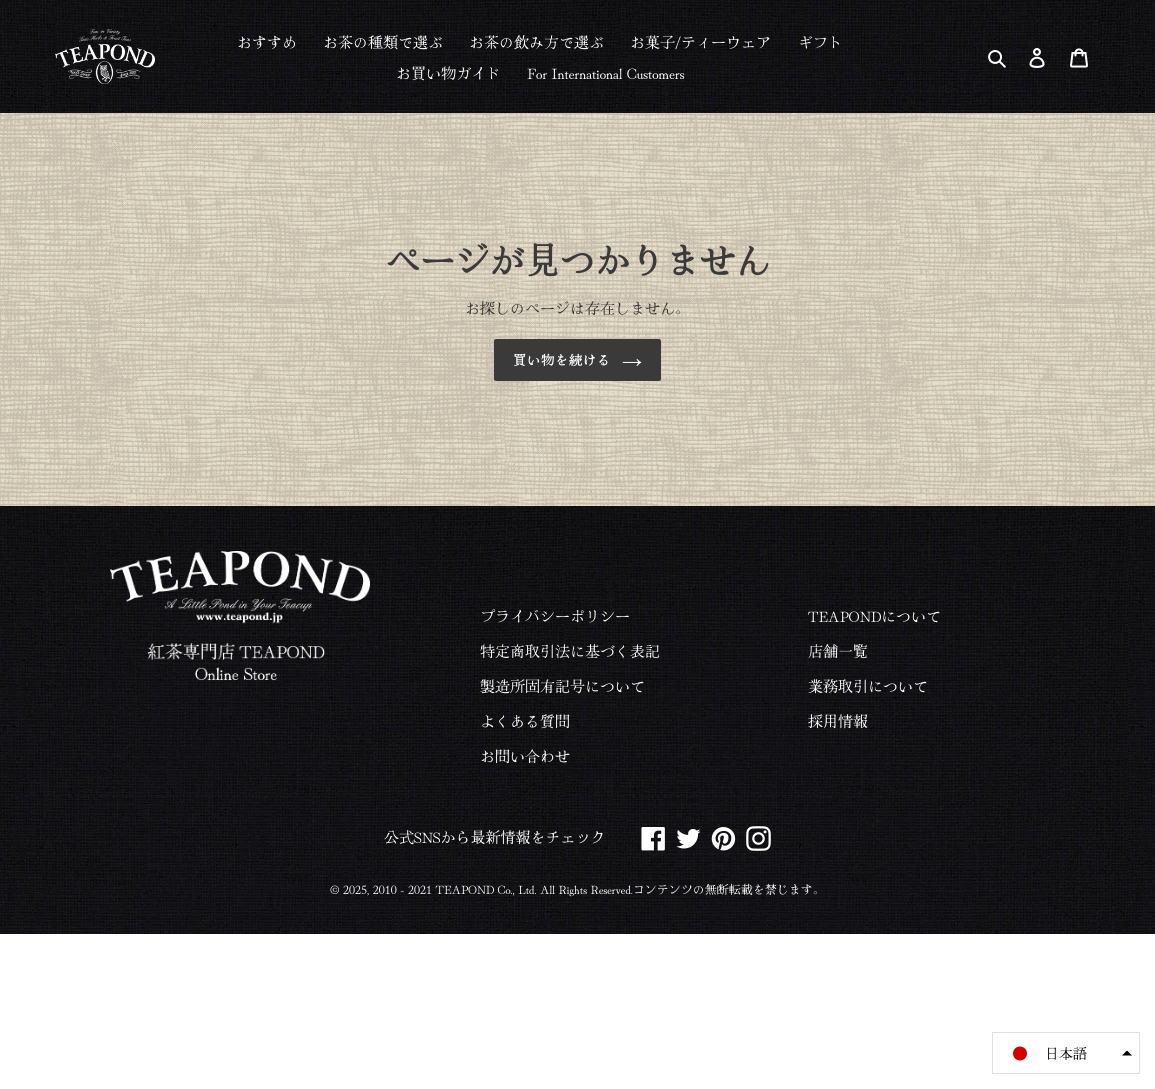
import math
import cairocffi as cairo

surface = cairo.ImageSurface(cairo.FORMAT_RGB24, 1155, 1089)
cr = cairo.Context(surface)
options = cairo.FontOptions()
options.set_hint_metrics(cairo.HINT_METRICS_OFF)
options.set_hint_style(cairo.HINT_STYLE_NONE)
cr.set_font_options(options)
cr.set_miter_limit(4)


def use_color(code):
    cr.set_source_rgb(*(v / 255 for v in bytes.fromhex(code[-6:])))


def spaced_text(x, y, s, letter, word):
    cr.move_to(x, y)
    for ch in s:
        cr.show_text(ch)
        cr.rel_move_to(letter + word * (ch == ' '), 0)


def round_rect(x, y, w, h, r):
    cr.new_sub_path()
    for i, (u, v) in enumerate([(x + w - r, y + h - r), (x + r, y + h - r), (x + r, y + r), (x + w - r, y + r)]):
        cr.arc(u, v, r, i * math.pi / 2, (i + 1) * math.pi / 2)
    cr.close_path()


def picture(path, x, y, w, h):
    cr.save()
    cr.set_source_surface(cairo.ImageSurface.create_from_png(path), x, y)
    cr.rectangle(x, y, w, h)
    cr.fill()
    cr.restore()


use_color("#ffffff")
cr.paint()
picture("img1.png", 0, 0, 1155, 113)
picture("img2.png", 55, 0, 1045, 113)
picture("img3.png", 55, 29, 100, 55)
cr.select_font_face("Hina Mincho")
cr.set_font_size(15)
use_color("#ffffff")
cr.move_to(237, 48)
cr.show_text("おすすめ")
cr.move_to(323, 48)
cr.show_text("お茶の種類で選ぶ")
cr.move_to(469, 48)
cr.show_text("お茶の飲み方で選ぶ")
cr.move_to(630, 48)
cr.show_text("お菓子/ティーウェア")
cr.move_to(798, 48)
cr.show_text("ギフト")
cr.move_to(396, 79)
cr.show_text("お買い物ガイド")
cr.move_to(527, 79)
cr.show_text("For International Customers")
picture("img4.png", 988, 50, 18, 18)
picture("img5.png", 1029, 48, 16, 20)
picture("img6.png", 1070, 48, 18, 20)
picture("img7.png", 0, 113, 1155, 393)
cr.select_font_face("Hina Mincho", cairo.FONT_SLANT_NORMAL, cairo.FONT_WEIGHT_BOLD)
cr.set_font_size(35)
use_color("#3a3a3a")
cr.move_to(385, 274)
cr.show_text("ページが見つかりません")
cr.select_font_face("Hina Mincho")
cr.set_font_size(15)
use_color("#333232")
cr.move_to(465, 314)
cr.show_text("お探しのページは存在しません。")
use_color("#3a3a3a")
round_rect(494, 339, 167, 42, 2)
cr.fill()
cr.select_font_face("Hina Mincho", cairo.FONT_SLANT_NORMAL, cairo.FONT_WEIGHT_BOLD)
cr.set_font_size(13)
use_color("#ffffff")
spaced_text(513, 365, "買い物を続ける", 1, 0)
picture("img8.png", 622, 358, 20, 8)
picture("img9.png", 0, 506, 1155, 428)
picture("img10.png", 110, 551, 260, 129)
cr.select_font_face("Hina Mincho")
cr.set_font_size(15)
cr.move_to(480, 622)
cr.show_text("プライバシーポリシー")
cr.move_to(480, 657)
cr.show_text("特定商取引法に基づく表記")
cr.move_to(480, 692)
cr.show_text("製造所固有記号について")
cr.move_to(480, 727)
cr.show_text("よくある質問")
cr.move_to(480, 762)
cr.show_text("お問い合わせ")
cr.move_to(808, 622)
cr.show_text("TEAPONDについて")
cr.move_to(808, 657)
cr.show_text("店舗一覧")
cr.move_to(808, 692)
cr.show_text("業務取引について")
cr.move_to(808, 727)
cr.show_text("採用情報")
cr.move_to(384, 843)
cr.show_text("公式SNSから最新情報をチェック")
picture("img11.png", 641, 827, 24, 24)
picture("img12.png", 676, 829, 25, 20)
picture("img13.png", 711, 827, 25, 24)
picture("img14.png", 746, 826, 25, 25)
cr.set_font_size(12)
cr.move_to(330, 894)
cr.show_text("© 2025, 2010 - 2021 TEAPOND Co., Ltd. All Rights Reserved.コンテンツの無断転載を禁じます。")
cr.rectangle(992.5, 1032.5, 147, 41)
use_color("#e0e0e0")
cr.set_line_width(1)
cr.stroke()
use_color("#d30000")
cr.arc(1020, 1053.5, 7, 0, 2 * math.pi)
cr.fill()
cr.set_font_size(14)
use_color("#000000")
cr.move_to(1045, 1059)
cr.show_text("日本語")
cr.set_fill_rule(cairo.FILL_RULE_EVEN_ODD)
cr.new_path()
cr.move_to(1122, 1055.5)
cr.line_to(1127, 1050.5)
cr.line_to(1132, 1055.5)
cr.close_path()
cr.fill()
surface.write_to_png("result.png")
